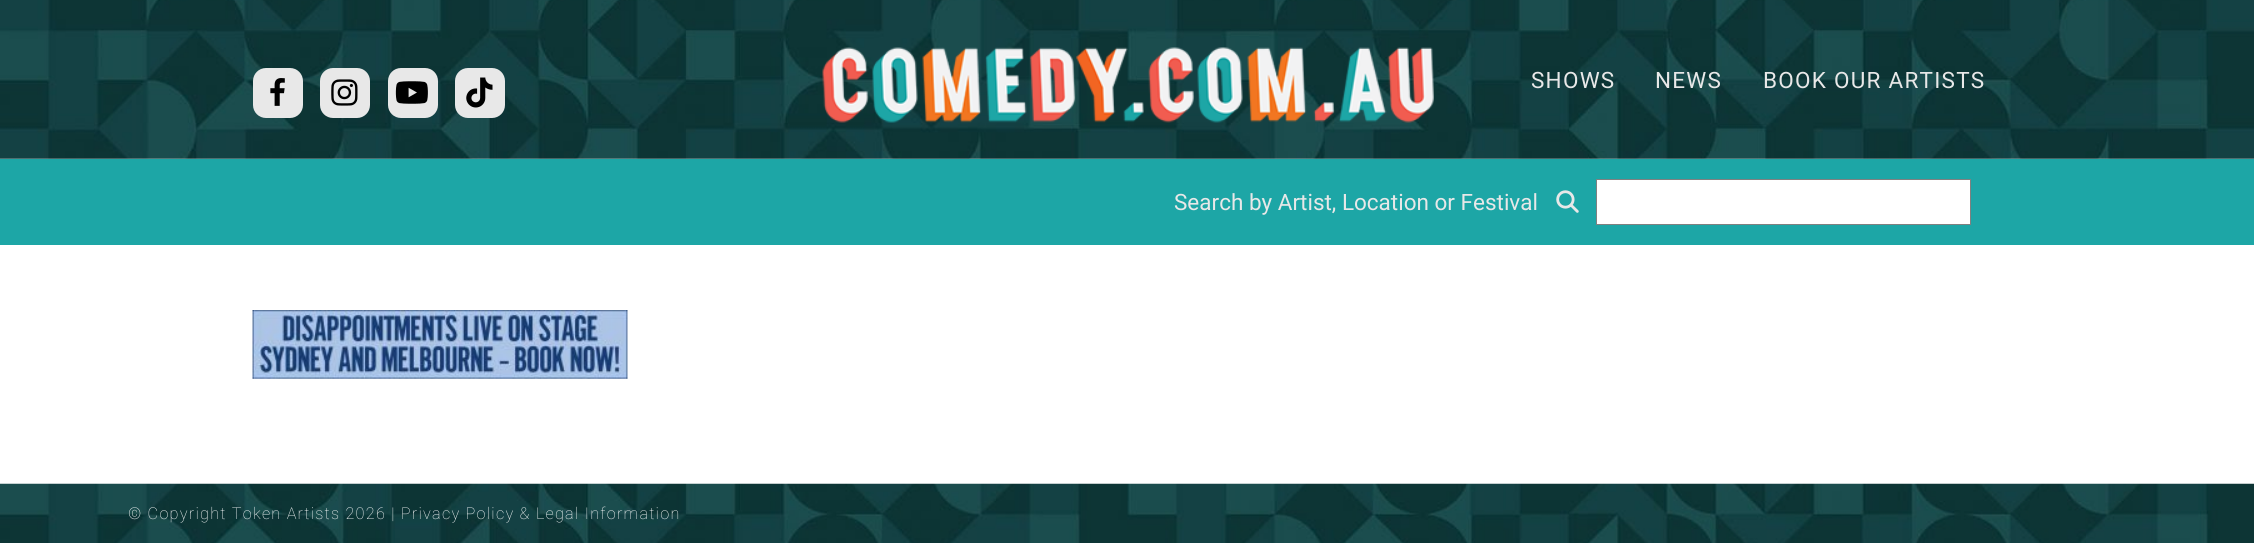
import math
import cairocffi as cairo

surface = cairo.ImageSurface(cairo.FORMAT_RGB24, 2254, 543)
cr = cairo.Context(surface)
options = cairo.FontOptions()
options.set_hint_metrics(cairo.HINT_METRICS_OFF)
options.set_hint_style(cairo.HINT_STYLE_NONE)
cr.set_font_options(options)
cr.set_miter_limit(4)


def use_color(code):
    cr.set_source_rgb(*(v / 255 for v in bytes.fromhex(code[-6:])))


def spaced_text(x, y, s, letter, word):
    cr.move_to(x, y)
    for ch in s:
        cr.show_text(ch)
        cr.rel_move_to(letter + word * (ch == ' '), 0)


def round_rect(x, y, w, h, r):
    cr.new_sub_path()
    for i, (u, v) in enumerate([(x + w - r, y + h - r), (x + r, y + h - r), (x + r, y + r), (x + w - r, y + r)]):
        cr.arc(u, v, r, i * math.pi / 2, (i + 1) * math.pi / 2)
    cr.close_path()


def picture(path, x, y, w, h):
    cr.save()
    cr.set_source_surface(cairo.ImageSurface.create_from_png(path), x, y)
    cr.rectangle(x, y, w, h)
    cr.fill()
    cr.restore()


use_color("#ffffff")
cr.paint()
picture("img1.png", 0, 0, 2254, 159)
use_color("#e8e8e8")
round_rect(253, 68, 50, 50, 13)
cr.fill()
picture("img2.png", 270, 78, 15, 28)
round_rect(320, 68, 50, 50, 13)
cr.fill()
picture("img3.png", 331, 79, 27, 27)
round_rect(388, 68, 50, 50, 13)
cr.fill()
picture("img4.png", 395, 81, 33, 23)
round_rect(455, 68, 50, 50, 13)
cr.fill()
picture("img5.png", 466, 77, 27, 31)
picture("img6.png", 822, 47, 612, 76)
cr.select_font_face("Roboto")
cr.set_font_size(22.5)
spaced_text(1531, 88, "SHOWS", 1.25, 0)
spaced_text(1655, 88, "NEWS", 1.25, 0)
spaced_text(1763, 88, "BOOK OUR ARTISTS", 1.25, 0)
use_color("#1da6a6")
cr.rectangle(0, 159, 2254, 86)
cr.fill()
use_color("#e8e8e8")
cr.move_to(1174, 210)
cr.show_text("Search by Artist, Location or Festival")
picture("img7.png", 1556, 190, 23, 23)
use_color("#ffffff")
cr.rectangle(1596.5, 179.5, 374, 45)
cr.fill_preserve()
use_color("#808080")
cr.set_line_width(1)
cr.stroke()
picture("img8.png", 252, 310, 376, 69)
picture("img9.png", 0, 483, 2254, 60)
cr.select_font_face("Roboto Thin")
cr.set_font_size(16.25)
use_color("#ffffff")
spaced_text(128, 519, "© Copyright Token Artists 2026 | Privacy Policy & Legal Information", 1.25, 0)
surface.write_to_png("result.png")
